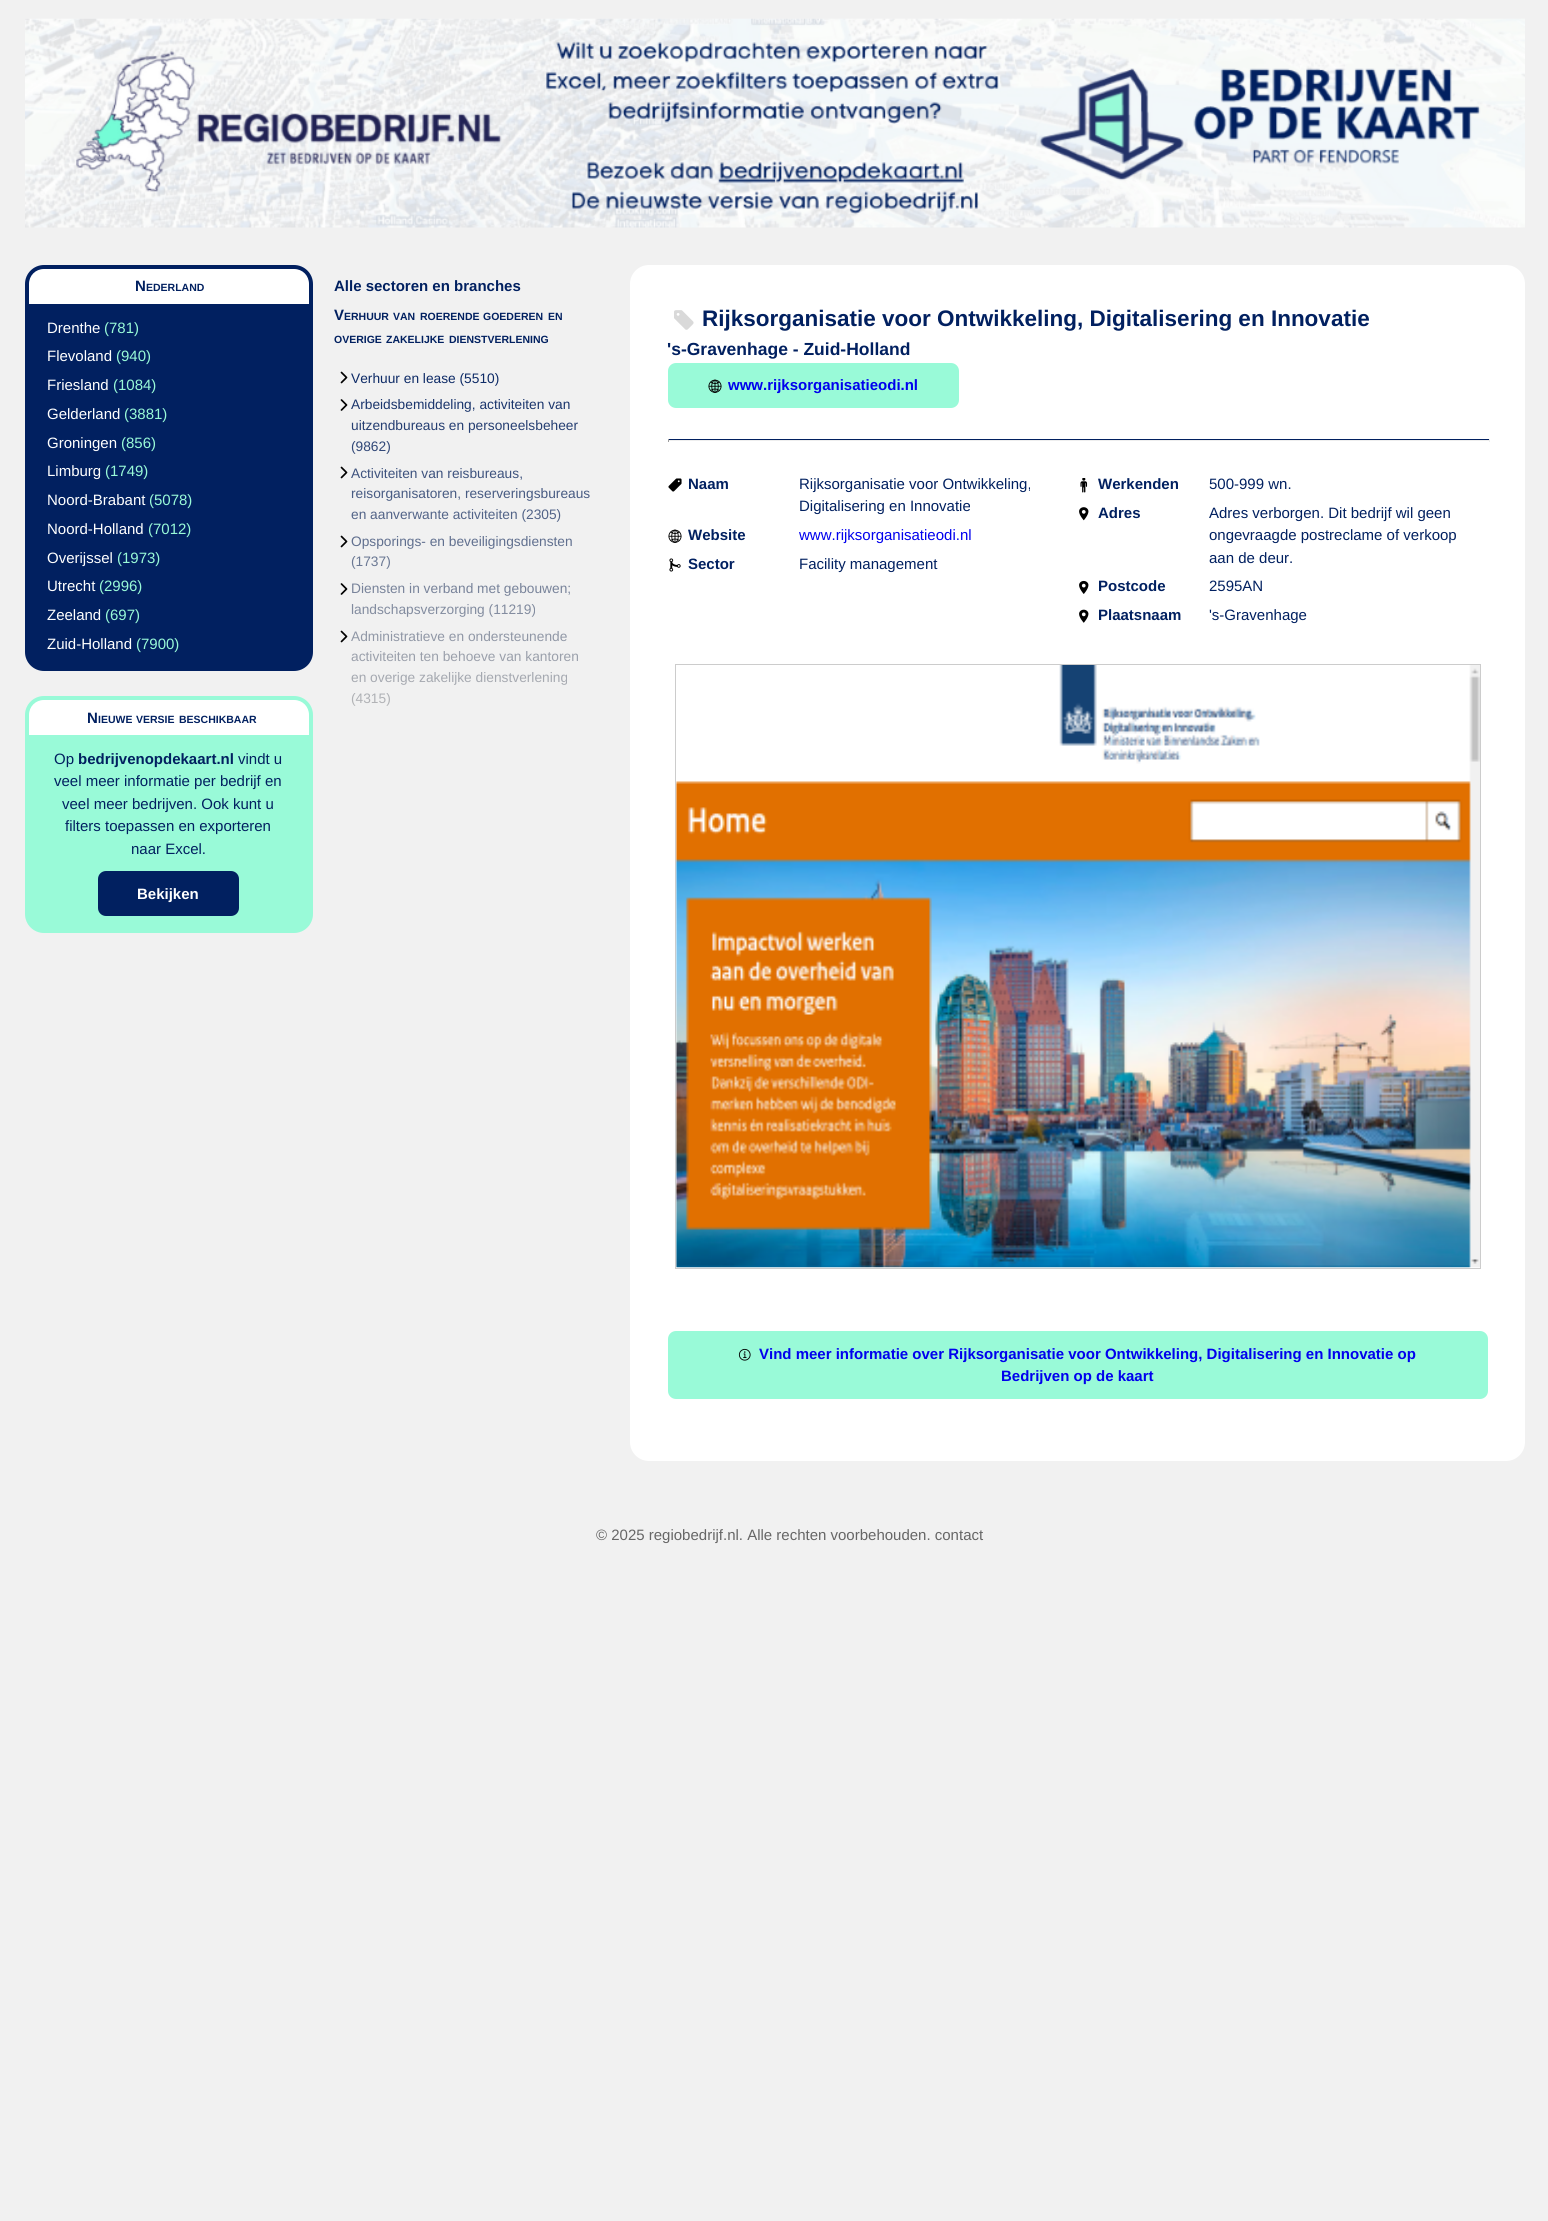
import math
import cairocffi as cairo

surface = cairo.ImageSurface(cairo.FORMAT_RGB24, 1548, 2221)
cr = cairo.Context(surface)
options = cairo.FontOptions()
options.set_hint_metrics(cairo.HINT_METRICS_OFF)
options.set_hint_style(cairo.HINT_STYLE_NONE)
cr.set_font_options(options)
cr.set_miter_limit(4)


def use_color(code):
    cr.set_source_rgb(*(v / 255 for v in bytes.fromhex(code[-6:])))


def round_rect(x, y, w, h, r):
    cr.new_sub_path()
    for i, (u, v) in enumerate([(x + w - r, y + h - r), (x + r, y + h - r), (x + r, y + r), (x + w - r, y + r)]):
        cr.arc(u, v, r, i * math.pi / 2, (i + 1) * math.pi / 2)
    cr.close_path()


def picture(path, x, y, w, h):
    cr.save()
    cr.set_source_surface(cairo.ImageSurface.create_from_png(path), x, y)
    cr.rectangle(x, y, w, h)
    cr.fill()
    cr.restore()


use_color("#f1f1f1")
cr.paint()
picture("img1.png", 25, 18, 1500, 210)
use_color("#012060")
round_rect(25, 265, 288, 406, 19)
cr.fill()
use_color("#ffffff")
cr.new_path()
cr.move_to(44, 269)
cr.line_to(294, 269)
cr.curve_to(302.5, 269, 309, 275.5, 309, 284)
cr.line_to(309, 304)
cr.line_to(29, 304)
cr.line_to(29, 284)
cr.curve_to(29, 275.5, 35.5, 269, 44, 269)
cr.close_path()
cr.fill()
cr.select_font_face("Liberation Sans", cairo.FONT_SLANT_NORMAL, cairo.FONT_WEIGHT_BOLD)
cr.set_font_size(15)
use_color("#012060")
cr.move_to(135, 291)
cr.show_text("N")
cr.set_font_size(10.5)
cr.move_to(146, 291)
cr.show_text("EDERLAND")
cr.select_font_face("Liberation Sans")
cr.set_font_size(15)
use_color("#ffffff")
cr.move_to(47, 333)
cr.show_text("Drenthe")
use_color("#99fad8")
cr.move_to(104, 333)
cr.show_text("(781)")
use_color("#ffffff")
cr.move_to(47, 361)
cr.show_text("Flevoland")
use_color("#99fad8")
cr.move_to(116, 361)
cr.show_text("(940)")
use_color("#ffffff")
cr.move_to(47, 390)
cr.show_text("Friesland")
use_color("#99fad8")
cr.move_to(113, 390)
cr.show_text("(1084)")
use_color("#ffffff")
cr.move_to(47, 419)
cr.show_text("Gelderland")
use_color("#99fad8")
cr.move_to(124, 419)
cr.show_text("(3881)")
use_color("#ffffff")
cr.move_to(47, 448)
cr.show_text("Groningen")
use_color("#99fad8")
cr.move_to(121, 448)
cr.show_text("(856)")
use_color("#ffffff")
cr.move_to(47, 476)
cr.show_text("Limburg")
use_color("#99fad8")
cr.move_to(105, 476)
cr.show_text("(1749)")
use_color("#ffffff")
cr.move_to(47, 505)
cr.show_text("Noord-Brabant")
use_color("#99fad8")
cr.move_to(149, 505)
cr.show_text("(5078)")
use_color("#ffffff")
cr.move_to(47, 534)
cr.show_text("Noord-Holland")
use_color("#99fad8")
cr.move_to(148, 534)
cr.show_text("(7012)")
use_color("#ffffff")
cr.move_to(47, 563)
cr.show_text("Overijssel")
use_color("#99fad8")
cr.move_to(117, 563)
cr.show_text("(1973)")
use_color("#ffffff")
cr.move_to(47, 591)
cr.show_text("Utrecht")
use_color("#99fad8")
cr.move_to(99, 591)
cr.show_text("(2996)")
use_color("#ffffff")
cr.move_to(47, 620)
cr.show_text("Zeeland")
use_color("#99fad8")
cr.move_to(105, 620)
cr.show_text("(697)")
use_color("#ffffff")
cr.move_to(47, 649)
cr.show_text("Zuid-Holland")
use_color("#99fad8")
cr.move_to(136, 649)
cr.show_text("(7900)")
round_rect(25, 696, 288, 237, 19)
cr.fill()
use_color("#ffffff")
cr.new_path()
cr.move_to(44, 700)
cr.line_to(294, 700)
cr.curve_to(302.5, 700, 309, 706.5, 309, 715)
cr.line_to(309, 735)
cr.line_to(29, 735)
cr.line_to(29, 715)
cr.curve_to(29, 706.5, 35.5, 700, 44, 700)
cr.close_path()
cr.fill()
cr.select_font_face("Liberation Sans", cairo.FONT_SLANT_NORMAL, cairo.FONT_WEIGHT_BOLD)
use_color("#012060")
cr.move_to(87, 723)
cr.show_text("N")
cr.set_font_size(10.5)
cr.move_to(98, 723)
cr.show_text("IEUWE")
cr.move_to(136, 723)
cr.show_text("VERSIE")
cr.move_to(179, 723)
cr.show_text("BESCHIKBAAR")
cr.select_font_face("Liberation Sans")
cr.set_font_size(15)
cr.move_to(54, 764)
cr.show_text("Op")
cr.select_font_face("Liberation Sans", cairo.FONT_SLANT_NORMAL, cairo.FONT_WEIGHT_BOLD)
cr.move_to(78, 764)
cr.show_text("bedrijvenopdekaart.nl")
cr.select_font_face("Liberation Sans")
cr.move_to(238, 764)
cr.show_text("vindt u")
cr.move_to(54, 786)
cr.show_text("veel meer informatie per bedrijf en")
cr.move_to(62, 809)
cr.show_text("veel meer bedrijven. Ook kunt u")
cr.move_to(65, 831)
cr.show_text("filters toepassen en exporteren")
cr.move_to(131, 854)
cr.show_text("naar Excel.")
round_rect(98, 871, 141, 45, 8)
cr.fill()
cr.select_font_face("Liberation Sans", cairo.FONT_SLANT_NORMAL, cairo.FONT_WEIGHT_BOLD)
use_color("#ffffff")
cr.move_to(137, 899)
cr.show_text("Bekijken")
use_color("#012060")
cr.move_to(334, 291)
cr.show_text("Alle sectoren en branches")
cr.move_to(334, 320)
cr.show_text("V")
cr.set_font_size(10.5)
cr.move_to(344, 320)
cr.show_text("ERHUUR")
cr.move_to(393, 320)
cr.show_text("VAN")
cr.move_to(420, 320)
cr.show_text("ROERENDE")
cr.move_to(483, 320)
cr.show_text("GOEDEREN")
cr.move_to(548, 320)
cr.show_text("EN")
cr.move_to(334, 343)
cr.show_text("OVERIGE")
cr.move_to(386, 343)
cr.show_text("ZAKELIJKE")
cr.move_to(449, 343)
cr.show_text("DIENSTVERLENING")
cr.new_path()
cr.move_to(341.5, 372.5)
cr.line_to(346.5, 377.5)
cr.line_to(341.5, 382.5)
cr.move_to(341.5, 400)
cr.line_to(346.5, 405)
cr.line_to(341.5, 410)
use_color("#000000")
cr.set_line_width(1.7)
cr.set_line_cap(cairo.LINE_CAP_ROUND)
cr.set_line_join(cairo.LINE_JOIN_ROUND)
cr.stroke()
cr.select_font_face("Liberation Sans")
cr.set_font_size(13.75)
gradient = cairo.LinearGradient(468, 355, 468, 721)
gradient.add_color_stop_rgba(0, 0.004, 0.125, 0.376, 1)
gradient.add_color_stop_rgba(1, 0.733, 0.733, 0.733, 1)
cr.set_source(gradient)
cr.move_to(351, 383)
cr.show_text("Verhuur en lease (5510)")
cr.move_to(351, 409)
cr.show_text("Arbeidsbemiddeling, activiteiten van")
cr.move_to(351, 430)
cr.show_text("uitzendbureaus en personeelsbeheer")
cr.move_to(351, 451)
cr.show_text("(9862)")
cr.new_path()
cr.move_to(341.5, 467.5)
cr.line_to(346.5, 472.5)
cr.line_to(341.5, 477.5)
use_color("#000000")
cr.stroke()
gradient = cairo.LinearGradient(468, 355, 468, 721)
gradient.add_color_stop_rgba(0, 0.004, 0.125, 0.376, 1)
gradient.add_color_stop_rgba(1, 0.733, 0.733, 0.733, 1)
cr.set_source(gradient)
cr.move_to(351, 478)
cr.show_text("Activiteiten van reisbureaus,")
cr.move_to(351, 498)
cr.show_text("reisorganisatoren, reserveringsbureaus")
cr.move_to(351, 519)
cr.show_text("en aanverwante activiteiten (2305)")
cr.new_path()
cr.move_to(341.5, 536.5)
cr.line_to(346.5, 541.5)
cr.line_to(341.5, 546.5)
cr.move_to(341.5, 584)
cr.line_to(346.5, 589)
cr.line_to(341.5, 594)
use_color("#000000")
cr.stroke()
gradient = cairo.LinearGradient(468, 355, 468, 721)
gradient.add_color_stop_rgba(0, 0.004, 0.125, 0.376, 1)
gradient.add_color_stop_rgba(1, 0.733, 0.733, 0.733, 1)
cr.set_source(gradient)
cr.move_to(351, 546)
cr.show_text("Opsporings- en beveiligingsdiensten")
cr.move_to(351, 566)
cr.show_text("(1737)")
cr.move_to(351, 593)
cr.show_text("Diensten in verband met gebouwen;")
cr.move_to(351, 614)
cr.show_text("landschapsverzorging (11219)")
cr.new_path()
cr.move_to(341.5, 631.5)
cr.line_to(346.5, 636.5)
cr.line_to(341.5, 641.5)
use_color("#000000")
cr.stroke()
gradient = cairo.LinearGradient(468, 355, 468, 721)
gradient.add_color_stop_rgba(0, 0.004, 0.125, 0.376, 1)
gradient.add_color_stop_rgba(1, 0.733, 0.733, 0.733, 1)
cr.set_source(gradient)
cr.move_to(351, 641)
cr.show_text("Administratieve en ondersteunende")
cr.move_to(351, 661)
cr.show_text("activiteiten ten behoeve van kantoren")
cr.move_to(351, 682)
cr.show_text("en overige zakelijke dienstverlening")
cr.move_to(351, 703)
cr.show_text("(4315)")
use_color("#ffffff")
round_rect(630, 265, 895, 1196, 19)
cr.fill()
picture("img2.png", 674, 310, 20, 20)
cr.select_font_face("Liberation Sans", cairo.FONT_SLANT_NORMAL, cairo.FONT_WEIGHT_BOLD)
cr.set_font_size(22.5)
use_color("#012060")
cr.move_to(702, 326)
cr.show_text("Rijksorganisatie voor Ontwikkeling, Digitalisering en Innovatie")
cr.set_font_size(17.5)
cr.move_to(667, 355)
cr.show_text("'s-Gravenhage - Zuid-Holland")
use_color("#99fad8")
round_rect(668, 363, 291, 45, 8)
cr.fill()
picture("img3.png", 708, 379, 14, 14)
cr.set_font_size(15)
use_color("#0000ee")
cr.move_to(728, 390)
cr.show_text("www.rijksorganisatieodi.nl")
use_color("#012060")
cr.rectangle(668, 439, 822, 1)
cr.fill()
use_color("#eeeeee")
cr.rectangle(1489, 439, 1, 3)
cr.fill()
cr.rectangle(668, 440, 822, 1)
cr.fill()
use_color("#9f9f9f")
cr.rectangle(668, 439, 1, 3)
cr.fill()
picture("img4.png", 668, 478, 14, 14)
use_color("#012060")
cr.move_to(688, 489)
cr.show_text("Naam")
cr.select_font_face("Liberation Sans")
cr.move_to(799, 489)
cr.show_text("Rijksorganisatie voor Ontwikkeling,")
cr.move_to(799, 511)
cr.show_text("Digitalisering en Innovatie")
picture("img5.png", 668, 529, 14, 14)
cr.select_font_face("Liberation Sans", cairo.FONT_SLANT_NORMAL, cairo.FONT_WEIGHT_BOLD)
cr.move_to(688, 540)
cr.show_text("Website")
cr.select_font_face("Liberation Sans")
use_color("#0000ee")
cr.move_to(799, 540)
cr.show_text("www.rijksorganisatieodi.nl")
picture("img6.png", 669, 558, 12, 14)
cr.select_font_face("Liberation Sans", cairo.FONT_SLANT_NORMAL, cairo.FONT_WEIGHT_BOLD)
use_color("#012060")
cr.move_to(688, 569)
cr.show_text("Sector")
cr.select_font_face("Liberation Sans")
cr.move_to(799, 569)
cr.show_text("Facility management")
picture("img7.png", 1080, 478, 8, 15)
cr.select_font_face("Liberation Sans", cairo.FONT_SLANT_NORMAL, cairo.FONT_WEIGHT_BOLD)
cr.move_to(1098, 489)
cr.show_text("Werkenden")
cr.select_font_face("Liberation Sans")
cr.move_to(1209, 489)
cr.show_text("500-999 wn.")
picture("img8.png", 1079, 507, 10, 14)
cr.select_font_face("Liberation Sans", cairo.FONT_SLANT_NORMAL, cairo.FONT_WEIGHT_BOLD)
cr.move_to(1098, 518)
cr.show_text("Adres")
cr.select_font_face("Liberation Sans")
cr.move_to(1209, 518)
cr.show_text("Adres verborgen. Dit bedrijf wil geen")
cr.move_to(1209, 540)
cr.show_text("ongevraagde postreclame of verkoop")
cr.move_to(1209, 563)
cr.show_text("aan de deur.")
picture("img9.png", 1079, 580, 10, 14)
cr.select_font_face("Liberation Sans", cairo.FONT_SLANT_NORMAL, cairo.FONT_WEIGHT_BOLD)
cr.move_to(1098, 591)
cr.show_text("Postcode")
cr.select_font_face("Liberation Sans")
cr.move_to(1209, 591)
cr.show_text("2595AN")
picture("img10.png", 1079, 609, 10, 14)
cr.select_font_face("Liberation Sans", cairo.FONT_SLANT_NORMAL, cairo.FONT_WEIGHT_BOLD)
cr.move_to(1098, 620)
cr.show_text("Plaatsnaam")
cr.select_font_face("Liberation Sans")
cr.move_to(1209, 620)
cr.show_text("'s-Gravenhage")
cr.rectangle(675.5, 664.5, 805, 604)
use_color("#cccccc")
cr.set_line_width(1)
cr.set_line_cap(cairo.LINE_CAP_BUTT)
cr.set_line_join(cairo.LINE_JOIN_MITER)
cr.stroke()
picture("img11.png", 676, 665, 804, 603)
use_color("#99fad8")
round_rect(668, 1331, 820, 68, 8)
cr.fill()
picture("img12.png", 738, 1348, 13, 13)
cr.select_font_face("Liberation Sans", cairo.FONT_SLANT_NORMAL, cairo.FONT_WEIGHT_BOLD)
use_color("#0000ee")
cr.move_to(759, 1359)
cr.show_text("Vind meer informatie over Rijksorganisatie voor Ontwikkeling, Digitalisering en Innovatie op")
cr.move_to(1001, 1381)
cr.show_text("Bedrijven op de kaart")
cr.select_font_face("Liberation Sans")
use_color("#666666")
cr.move_to(596, 1540)
cr.show_text("© 2025 regiobedrijf.nl. Alle rechten voorbehouden. contact")
surface.write_to_png("result.png")
